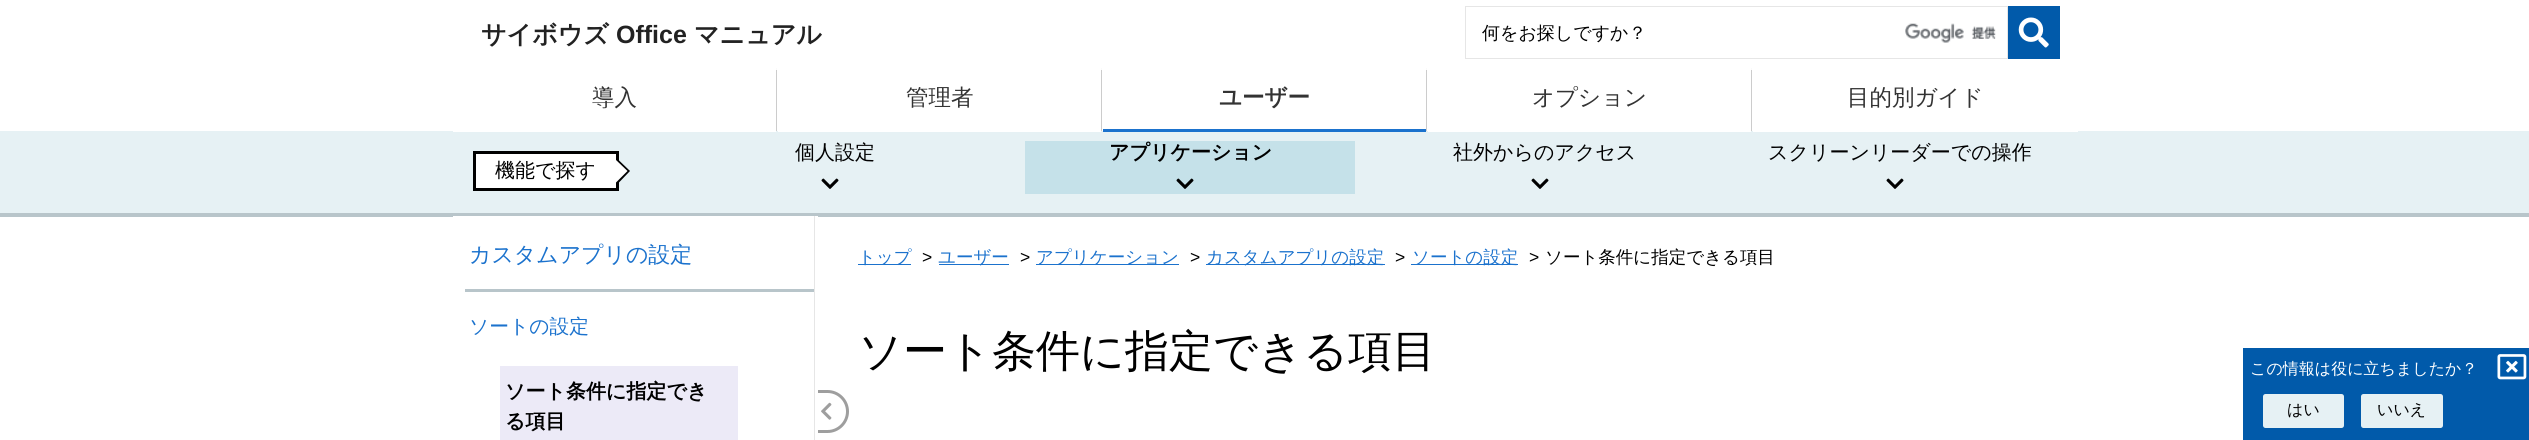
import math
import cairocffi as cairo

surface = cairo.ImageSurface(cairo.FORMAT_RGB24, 2529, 440)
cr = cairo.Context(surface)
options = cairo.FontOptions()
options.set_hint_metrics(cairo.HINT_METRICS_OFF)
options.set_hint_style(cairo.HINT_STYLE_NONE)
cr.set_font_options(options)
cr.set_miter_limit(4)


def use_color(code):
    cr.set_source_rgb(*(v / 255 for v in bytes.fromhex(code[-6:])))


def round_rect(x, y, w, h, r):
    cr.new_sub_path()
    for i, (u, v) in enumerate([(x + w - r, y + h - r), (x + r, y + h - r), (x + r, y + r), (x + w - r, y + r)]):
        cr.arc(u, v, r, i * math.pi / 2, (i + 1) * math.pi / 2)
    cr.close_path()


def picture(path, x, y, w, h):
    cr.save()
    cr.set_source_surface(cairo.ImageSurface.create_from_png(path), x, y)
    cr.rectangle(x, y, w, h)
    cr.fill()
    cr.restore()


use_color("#ffffff")
cr.paint()
cr.select_font_face("WenQuanYi Zen Hei", cairo.FONT_SLANT_NORMAL, cairo.FONT_WEIGHT_BOLD)
cr.set_font_size(25)
use_color("#222222")
cr.move_to(481, 43)
cr.show_text("サイボウズ")
cr.select_font_face("Liberation Sans", cairo.FONT_SLANT_NORMAL, cairo.FONT_WEIGHT_BOLD)
cr.move_to(616, 43)
cr.show_text("Office")
cr.select_font_face("WenQuanYi Zen Hei", cairo.FONT_SLANT_NORMAL, cairo.FONT_WEIGHT_BOLD)
cr.move_to(694, 43)
cr.show_text("マニュアル")
picture("img1.png", 1905, 23, 91, 20)
cr.rectangle(1465.5, 6.5, 542, 52)
use_color("#e6e6e6")
cr.set_line_width(1)
cr.stroke()
cr.select_font_face("WenQuanYi Zen Hei Medium")
cr.set_font_size(18)
use_color("#000000")
cr.move_to(1482, 39)
cr.show_text("何をお探しですか？")
use_color("#015aaa")
cr.rectangle(2008, 6, 52, 53)
cr.fill()
picture("img2.png", 2018, 17, 31, 31)
use_color("#cccccc")
cr.rectangle(776, 68, 1, 63)
cr.fill()
use_color("#fafafa")
cr.rectangle(776, 68, 1, 2)
cr.fill()
use_color("#e6f1f4")
cr.rectangle(0, 131, 2529, 82)
cr.fill()
use_color("#ffffff")
cr.rectangle(453, 131, 323, 1)
cr.fill()
cr.set_font_size(22.5)
use_color("#333333")
cr.move_to(592, 105)
cr.show_text("導入")
use_color("#cccccc")
cr.rectangle(1101, 68, 1, 63)
cr.fill()
use_color("#fafafa")
cr.rectangle(1101, 68, 1, 2)
cr.fill()
use_color("#ffffff")
cr.rectangle(778, 131, 323, 1)
cr.fill()
use_color("#333333")
cr.move_to(906, 105)
cr.show_text("管理者")
use_color("#cccccc")
cr.rectangle(1426, 68, 1, 63)
cr.fill()
use_color("#fafafa")
cr.rectangle(1426, 68, 1, 2)
cr.fill()
use_color("#1b72cd")
cr.rectangle(1103, 129, 323, 3)
cr.fill()
cr.select_font_face("WenQuanYi Zen Hei", cairo.FONT_SLANT_NORMAL, cairo.FONT_WEIGHT_BOLD)
use_color("#333333")
cr.move_to(1219, 105)
cr.show_text("ユーザー")
use_color("#cccccc")
cr.rectangle(1751, 68, 1, 63)
cr.fill()
use_color("#fafafa")
cr.rectangle(1751, 68, 1, 2)
cr.fill()
use_color("#ffffff")
cr.rectangle(1428, 131, 323, 1)
cr.fill()
cr.select_font_face("WenQuanYi Zen Hei Medium")
use_color("#333333")
cr.move_to(1532, 105)
cr.show_text("オプション")
use_color("#ffffff")
cr.rectangle(1753, 131, 325, 1)
cr.fill()
use_color("#333333")
cr.move_to(1847, 105)
cr.show_text("目的別ガイド")
use_color("#b8c5ca")
cr.rectangle(0, 213, 2529, 4)
cr.fill()
cr.set_font_size(20)
use_color("#000000")
cr.move_to(795, 159)
cr.show_text("個人設定")
picture("img3.png", 821, 178, 18, 11)
use_color("#c5e1e9")
cr.rectangle(1025, 141, 330, 53)
cr.fill()
cr.select_font_face("WenQuanYi Zen Hei", cairo.FONT_SLANT_NORMAL, cairo.FONT_WEIGHT_BOLD)
use_color("#000000")
cr.move_to(1109, 159)
cr.show_text("アプリケーション")
picture("img4.png", 1176, 178, 18, 11)
cr.select_font_face("WenQuanYi Zen Hei Medium")
cr.move_to(1453, 159)
cr.show_text("社外からのアクセス")
picture("img3.png", 1531, 178, 18, 11)
cr.move_to(1768, 159)
cr.show_text("スクリーンリーダーでの操作")
picture("img3.png", 1886, 178, 18, 11)
use_color("#ffffff")
cr.rectangle(474.5, 152.5, 143, 37)
cr.fill_preserve()
use_color("#000000")
cr.set_line_width(3)
cr.stroke()
cr.move_to(495, 177)
cr.show_text("機能で探す")
cr.new_path()
cr.move_to(617.5, 184)
cr.line_to(617.5, 159)
cr.line_to(630, 171)
cr.close_path()
cr.fill()
use_color("#ffffff")
cr.new_path()
cr.move_to(616, 182.5)
cr.line_to(616, 160)
cr.line_to(627.5, 171)
cr.close_path()
cr.fill()
cr.new_path()
cr.move_to(807.5, 391.5)
cr.line_to(827.5, 391.5)
cr.curve_to(838.5, 391.5, 847.5, 400.5, 847.5, 411.5)
cr.curve_to(847.5, 422.5, 838.5, 431.5, 827.5, 431.5)
cr.line_to(807.5, 431.5)
cr.close_path()
use_color("#9e9e9e")
cr.stroke()
use_color("#ffffff")
cr.rectangle(453, 216, 365, 217)
cr.fill()
use_color("#e6e6e6")
cr.rectangle(814, 216, 1, 224)
cr.fill()
use_color("#b8c5ca")
cr.rectangle(465, 289, 349, 3)
cr.fill()
cr.set_font_size(21.9)
use_color("#1b72cd")
cr.move_to(469, 262)
cr.show_text("カスタムアプリの設定")
cr.set_font_size(19.75)
cr.move_to(469, 333)
cr.show_text("ソートの設定")
use_color("#eceaf7")
cr.rectangle(500, 366, 238, 74)
cr.fill()
cr.select_font_face("WenQuanYi Zen Hei", cairo.FONT_SLANT_NORMAL, cairo.FONT_WEIGHT_BOLD)
cr.set_font_size(20)
use_color("#000000")
cr.move_to(505, 398)
cr.show_text("ソート条件に指定でき")
cr.move_to(505, 428)
cr.show_text("る項目")
use_color("#1b72cd")
cr.rectangle(858, 264, 53, 1)
cr.fill()
cr.select_font_face("WenQuanYi Zen Hei Medium")
cr.set_font_size(17.5)
cr.move_to(858, 263)
cr.show_text("トップ")
cr.select_font_face("Liberation Sans")
use_color("#000000")
cr.move_to(922, 263)
cr.show_text(">")
use_color("#1b72cd")
cr.rectangle(939, 264, 70, 1)
cr.fill()
cr.select_font_face("WenQuanYi Zen Hei Medium")
cr.move_to(938, 263)
cr.show_text("ユーザー")
cr.select_font_face("Liberation Sans")
use_color("#000000")
cr.move_to(1020, 263)
cr.show_text(">")
use_color("#1b72cd")
cr.rectangle(1036, 264, 143, 1)
cr.fill()
cr.select_font_face("WenQuanYi Zen Hei Medium")
cr.move_to(1036, 263)
cr.show_text("アプリケーション")
cr.select_font_face("Liberation Sans")
use_color("#000000")
cr.move_to(1190, 263)
cr.show_text(">")
use_color("#1b72cd")
cr.rectangle(1206, 264, 179, 1)
cr.fill()
cr.select_font_face("WenQuanYi Zen Hei Medium")
cr.move_to(1206, 263)
cr.show_text("カスタムアプリの設定")
cr.select_font_face("Liberation Sans")
use_color("#000000")
cr.move_to(1395, 263)
cr.show_text(">")
use_color("#1b72cd")
cr.rectangle(1411, 264, 107, 1)
cr.fill()
cr.select_font_face("WenQuanYi Zen Hei Medium")
cr.move_to(1412, 263)
cr.show_text("ソートの設定")
cr.select_font_face("Liberation Sans")
use_color("#000000")
cr.move_to(1529, 263)
cr.show_text(">")
cr.select_font_face("WenQuanYi Zen Hei Medium")
cr.move_to(1545, 263)
cr.show_text("ソート条件に指定できる項目")
cr.set_font_size(44)
cr.move_to(858, 366)
cr.show_text("ソート条件に指定できる項目")
use_color("#015aaa")
cr.rectangle(2243, 348, 286, 92)
cr.fill()
cr.set_font_size(16)
use_color("#ffffff")
cr.move_to(2250, 374)
cr.show_text("この情報は役に立ちましたか？")
picture("img5.png", 2497, 354, 30, 26)
use_color("#e6f1f4")
round_rect(2263, 394, 81, 34, 2.5)
cr.fill()
use_color("#000000")
cr.move_to(2287, 415)
cr.show_text("はい")
use_color("#e6f1f4")
round_rect(2361, 394, 82, 34, 2.5)
cr.fill()
use_color("#000000")
cr.move_to(2377, 415)
cr.show_text("いいえ")
picture("img6.png", 821, 402, 11, 18)
surface.write_to_png("result.png")
